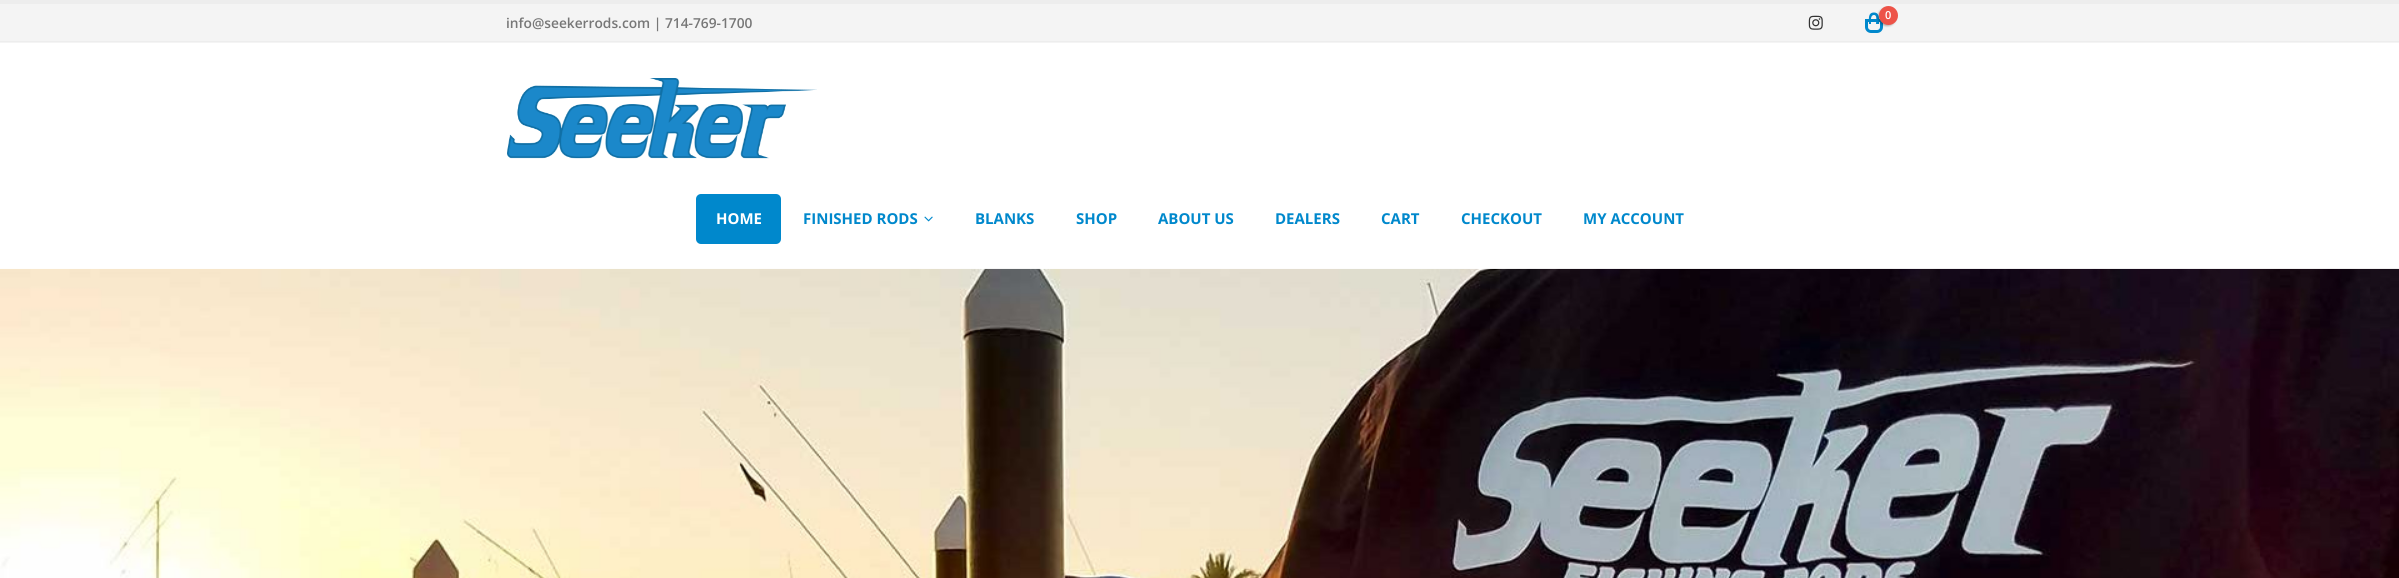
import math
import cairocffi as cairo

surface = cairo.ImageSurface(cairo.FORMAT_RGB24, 2399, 578)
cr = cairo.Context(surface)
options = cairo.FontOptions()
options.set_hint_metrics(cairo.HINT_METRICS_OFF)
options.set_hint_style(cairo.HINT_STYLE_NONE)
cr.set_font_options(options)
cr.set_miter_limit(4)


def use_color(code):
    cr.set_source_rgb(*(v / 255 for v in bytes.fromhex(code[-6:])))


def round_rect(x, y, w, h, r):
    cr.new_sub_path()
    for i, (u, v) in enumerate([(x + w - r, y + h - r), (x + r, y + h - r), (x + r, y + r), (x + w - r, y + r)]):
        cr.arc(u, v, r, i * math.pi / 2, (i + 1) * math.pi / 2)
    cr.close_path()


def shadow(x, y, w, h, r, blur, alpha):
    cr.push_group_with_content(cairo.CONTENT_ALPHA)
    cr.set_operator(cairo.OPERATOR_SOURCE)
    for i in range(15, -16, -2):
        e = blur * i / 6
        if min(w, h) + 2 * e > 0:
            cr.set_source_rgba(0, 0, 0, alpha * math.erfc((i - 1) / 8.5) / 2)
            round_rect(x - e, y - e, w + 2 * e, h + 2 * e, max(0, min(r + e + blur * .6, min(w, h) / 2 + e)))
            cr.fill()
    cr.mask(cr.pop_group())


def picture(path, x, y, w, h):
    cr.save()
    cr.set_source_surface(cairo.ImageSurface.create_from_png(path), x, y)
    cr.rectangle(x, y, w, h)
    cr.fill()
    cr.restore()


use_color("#ffffff")
cr.paint()
use_color("#ededed")
cr.rectangle(0, 0, 2399, 4)
cr.fill()
use_color("#f4f4f4")
cr.rectangle(0, 4, 2399, 39)
cr.fill()
use_color("#ededed")
cr.rectangle(0, 41, 2399, 1)
cr.fill()
picture("img1.png", 1808, 15, 15, 15)
cr.new_path()
cr.move_to(1866.5, 20.5)
cr.line_to(1881.5, 20.5)
cr.line_to(1881.5, 27)
cr.curve_to(1881.5, 29.5, 1879.5, 31.5, 1877, 31.5)
cr.line_to(1871, 31.5)
cr.curve_to(1868.5, 31.5, 1866.5, 29.5, 1866.5, 27)
cr.close_path()
use_color("#0088cc")
cr.set_line_width(3)
cr.stroke()
cr.set_fill_rule(cairo.FILL_RULE_EVEN_ODD)
cr.new_path()
cr.move_to(1874, 12.5)
cr.curve_to(1880, 12.5, 1879, 19.5, 1879, 24)
cr.line_to(1869, 24)
cr.curve_to(1869, 19.5, 1867.5, 12.5, 1874, 12.5)
cr.close_path()
cr.move_to(1874, 15)
cr.curve_to(1877.5, 15, 1876, 21.5, 1876, 24)
cr.line_to(1871, 24)
cr.curve_to(1871, 21.5, 1870, 15, 1874, 15)
cr.close_path()
cr.fill()
use_color("#000000")
shadow(1878, 8, 18, 18, 9, 1, 0.3)
use_color("#ed5348")
cr.arc(1888.5, 15.5, 9.5, 0, 2 * math.pi)
cr.fill()
cr.select_font_face("Open Sans SemiBold")
cr.set_font_size(11)
use_color("#ffffff")
cr.move_to(1885, 19)
cr.show_text("0")
cr.set_font_size(13.75)
use_color("#777777")
cr.move_to(506, 28)
cr.show_text("info@seekerrods.com | 714-769-1700")
picture("img2.png", 507, 78, 310, 81)
use_color("#0088cc")
round_rect(696, 194, 85, 50, 5)
cr.fill()
cr.select_font_face("Open Sans", cairo.FONT_SLANT_NORMAL, cairo.FONT_WEIGHT_BOLD)
cr.set_font_size(15)
use_color("#ffffff")
cr.move_to(716, 224)
cr.show_text("HOME")
use_color("#0088cc")
cr.move_to(803, 224)
cr.show_text("FINISHED RODS")
picture("img3.png", 924, 216, 9, 6)
cr.move_to(975, 224)
cr.show_text("BLANKS")
cr.move_to(1076, 224)
cr.show_text("SHOP")
cr.move_to(1158, 224)
cr.show_text("ABOUT US")
cr.move_to(1275, 224)
cr.show_text("DEALERS")
cr.move_to(1381, 224)
cr.show_text("CART")
cr.move_to(1461, 224)
cr.show_text("CHECKOUT")
cr.move_to(1583, 224)
cr.show_text("MY ACCOUNT")
picture("img4.png", 0, 268, 2399, 310)
surface.write_to_png("result.png")
